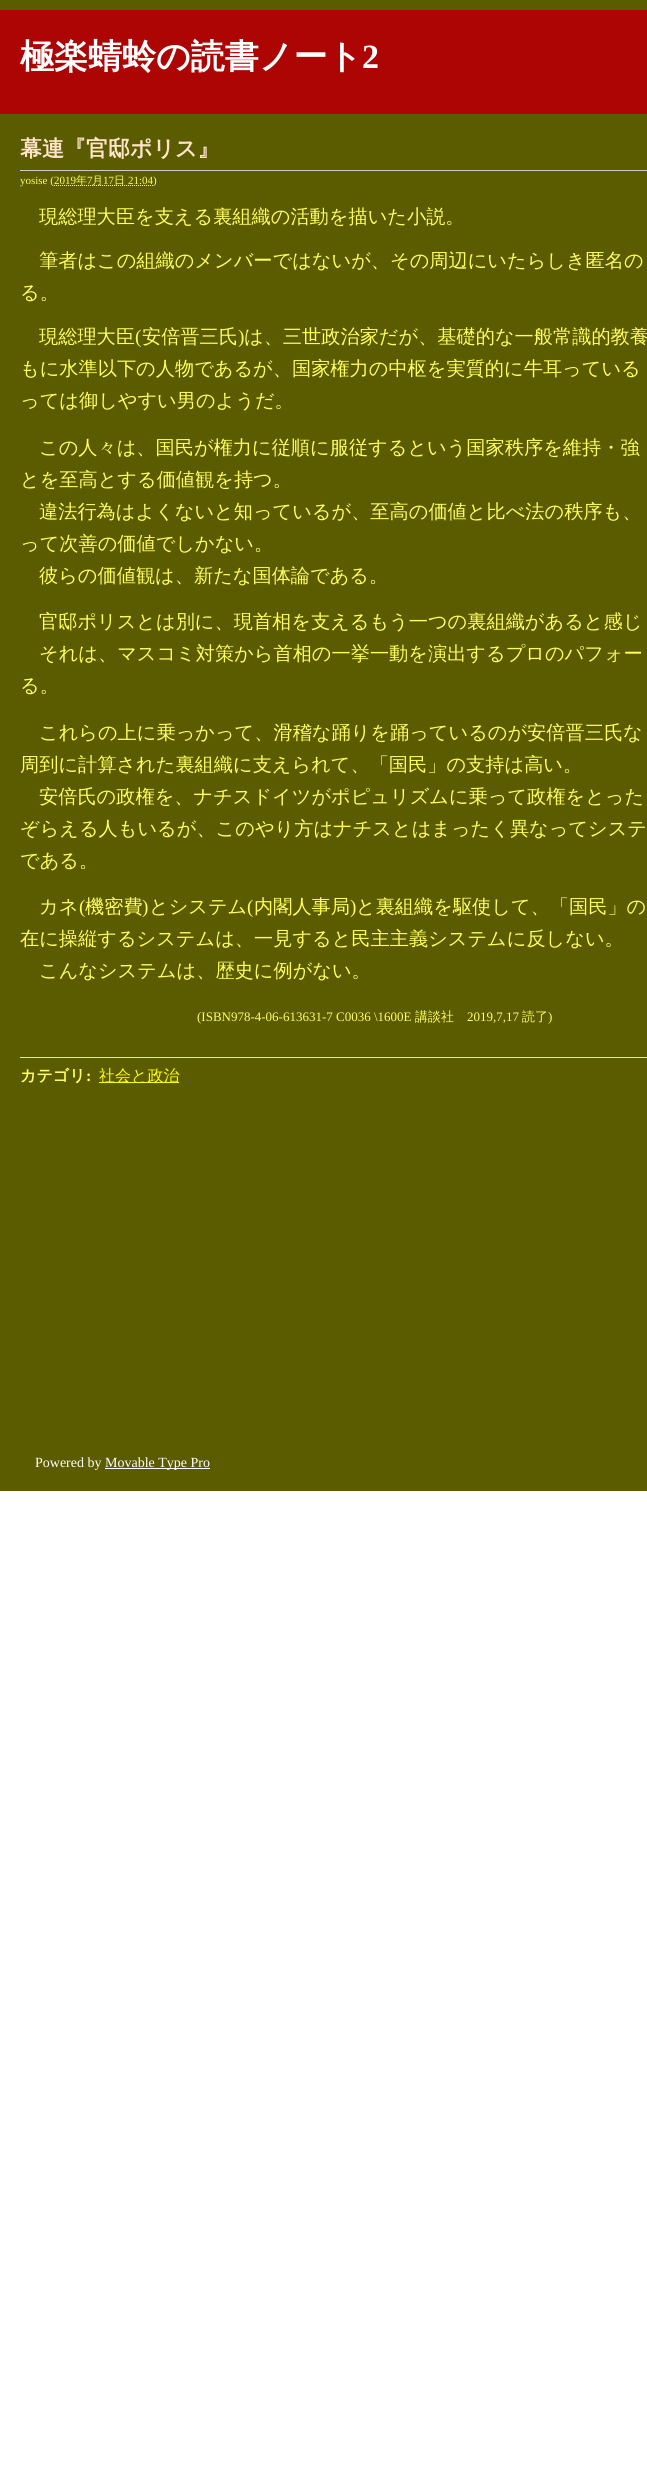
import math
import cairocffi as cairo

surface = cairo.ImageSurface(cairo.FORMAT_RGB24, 647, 2490)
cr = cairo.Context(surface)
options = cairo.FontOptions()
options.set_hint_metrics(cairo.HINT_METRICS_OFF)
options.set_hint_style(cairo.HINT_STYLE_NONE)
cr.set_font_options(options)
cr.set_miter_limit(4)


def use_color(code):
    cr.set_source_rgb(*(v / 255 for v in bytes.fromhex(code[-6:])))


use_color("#ffffff")
cr.paint()
use_color("#5b5b00")
cr.rectangle(0, 114, 647, 1377)
cr.fill()
use_color("#ad0404")
cr.rectangle(0, 10, 647, 104)
cr.fill()
use_color("#5b5b00")
cr.rectangle(0, 0, 647, 10)
cr.fill()
cr.select_font_face("WenQuanYi Zen Hei", cairo.FONT_SLANT_NORMAL, cairo.FONT_WEIGHT_BOLD)
cr.set_font_size(34)
use_color("#ffffff")
cr.move_to(20, 68)
cr.show_text("極楽蜻蛉の読書ノート")
cr.select_font_face("Liberation Serif", cairo.FONT_SLANT_NORMAL, cairo.FONT_WEIGHT_BOLD)
cr.move_to(362, 68)
cr.show_text("2")
cr.select_font_face("WenQuanYi Zen Hei", cairo.FONT_SLANT_NORMAL, cairo.FONT_WEIGHT_BOLD)
cr.set_font_size(22)
use_color("#ffe4ca")
cr.move_to(20, 156)
cr.show_text("幕連『官邸ポリス』")
use_color("#cccccc")
cr.rectangle(20, 170, 627, 1)
cr.fill()
cr.select_font_face("Liberation Serif")
cr.set_font_size(11)
use_color("#ffff60")
cr.move_to(20, 184)
cr.show_text("yosise (2019")
cr.new_path()
cr.move_to(54, 185.5)
cr.line_to(153, 185.5)
cr.set_line_width(1)
cr.set_dash([1, 1])
cr.stroke()
cr.select_font_face("WenQuanYi Zen Hei Medium")
cr.move_to(76, 184)
cr.show_text("年")
cr.select_font_face("Liberation Serif")
cr.move_to(87, 184)
cr.show_text("7")
cr.select_font_face("WenQuanYi Zen Hei Medium")
cr.move_to(92, 184)
cr.show_text("月")
cr.select_font_face("Liberation Serif")
cr.move_to(103, 184)
cr.show_text("17")
cr.select_font_face("WenQuanYi Zen Hei Medium")
cr.move_to(114, 184)
cr.show_text("日")
cr.select_font_face("Liberation Serif")
cr.move_to(128, 184)
cr.show_text("21:04)")
cr.select_font_face("WenQuanYi Zen Hei Medium")
cr.set_font_size(19.2)
cr.move_to(39, 223)
cr.show_text("現総理大臣を支える裏組織の活動を描いた小説。")
cr.move_to(39, 267)
cr.show_text("筆者はこの組織のメンバーではないが、その周辺にいたらしき匿名の")
cr.move_to(20, 299)
cr.show_text("る。")
cr.move_to(39, 343)
cr.show_text("現総理大臣")
cr.select_font_face("Liberation Serif")
cr.move_to(135, 343)
cr.show_text("(")
cr.select_font_face("WenQuanYi Zen Hei Medium")
cr.move_to(142, 343)
cr.show_text("安倍晋三氏")
cr.select_font_face("Liberation Serif")
cr.move_to(238, 343)
cr.show_text(")")
cr.select_font_face("WenQuanYi Zen Hei Medium")
cr.move_to(244, 343)
cr.show_text("は、三世政治家だが、基礎的な一般常識的教養")
cr.move_to(20, 375)
cr.show_text("もに水準以下の人物であるが、国家権力の中枢を実質的に牛耳っている")
cr.move_to(20, 407)
cr.show_text("っては御しやすい男のようだ。")
cr.move_to(39, 454)
cr.show_text("この人々は、国民が権力に従順に服従するという国家秩序を維持・強")
cr.move_to(20, 486)
cr.show_text("とを至高とする価値観を持つ。")
cr.move_to(39, 518)
cr.show_text("違法行為はよくないと知っているが、至高の価値と比べ法の秩序も、")
cr.move_to(20, 550)
cr.show_text("って次善の価値でしかない。")
cr.move_to(39, 582)
cr.show_text("彼らの価値観は、新たな国体論である。")
cr.move_to(39, 628)
cr.show_text("官邸ポリスとは別に、現首相を支えるもう一つの裏組織があると感じ")
cr.move_to(39, 660)
cr.show_text("それは、マスコミ対策から首相の一挙一動を演出するプロのパフォー")
cr.move_to(20, 692)
cr.show_text("る。")
cr.move_to(39, 739)
cr.show_text("これらの上に乗っかって、滑稽な踊りを踊っているのが安倍晋三氏な")
cr.move_to(20, 771)
cr.show_text("周到に計算された裏組織に支えられて、「国民」の支持は高い。")
cr.move_to(39, 803)
cr.show_text("安倍氏の政権を、ナチスドイツがポピュリズムに乗って政権をとった")
cr.move_to(20, 835)
cr.show_text("ぞらえる人もいるが、このやり方はナチスとはまったく異なってシステ")
cr.move_to(20, 867)
cr.show_text("である。")
cr.move_to(39, 913)
cr.show_text("カネ")
cr.select_font_face("Liberation Serif")
cr.move_to(79, 913)
cr.show_text("(")
cr.select_font_face("WenQuanYi Zen Hei Medium")
cr.move_to(85, 913)
cr.show_text("機密費")
cr.select_font_face("Liberation Serif")
cr.move_to(142, 913)
cr.show_text(")")
cr.select_font_face("WenQuanYi Zen Hei Medium")
cr.move_to(149, 913)
cr.show_text("とシステム")
cr.select_font_face("Liberation Serif")
cr.move_to(247, 913)
cr.show_text("(")
cr.select_font_face("WenQuanYi Zen Hei Medium")
cr.move_to(254, 913)
cr.show_text("内閣人事局")
cr.select_font_face("Liberation Serif")
cr.move_to(350, 913)
cr.show_text(")")
cr.select_font_face("WenQuanYi Zen Hei Medium")
cr.move_to(356, 913)
cr.show_text("と裏組織を駆使して、「国民」の")
cr.move_to(20, 945)
cr.show_text("在に操縦するシステムは、一見すると民主主義システムに反しない。")
cr.move_to(39, 977)
cr.show_text("こんなシステムは、歴史に例がない。")
cr.select_font_face("Liberation Serif")
cr.set_font_size(13)
cr.move_to(197, 1021)
cr.show_text("(ISBN978-4-06-613631-7 C0036 \\1600E")
cr.select_font_face("WenQuanYi Zen Hei Medium")
cr.move_to(415, 1021)
cr.show_text("講談社")
cr.select_font_face("Liberation Serif")
cr.move_to(467, 1021)
cr.show_text("2019,7,17")
cr.select_font_face("WenQuanYi Zen Hei Medium")
cr.move_to(522, 1021)
cr.show_text("読了")
cr.select_font_face("Liberation Serif")
cr.move_to(548, 1021)
cr.show_text(")")
use_color("#dddddd")
cr.rectangle(20, 1057, 627, 1)
cr.fill()
cr.select_font_face("WenQuanYi Zen Hei", cairo.FONT_SLANT_NORMAL, cairo.FONT_WEIGHT_BOLD)
cr.set_font_size(16)
use_color("#ffff60")
cr.move_to(20, 1081)
cr.show_text("カテゴリ")
cr.select_font_face("Liberation Serif", cairo.FONT_SLANT_NORMAL, cairo.FONT_WEIGHT_BOLD)
cr.move_to(86, 1081)
cr.show_text(":")
use_color("#ffff00")
cr.rectangle(99, 1082, 80, 1)
cr.fill()
cr.select_font_face("WenQuanYi Zen Hei Medium")
cr.move_to(99, 1081)
cr.show_text("社会と政治")
cr.select_font_face("Liberation Serif")
cr.set_font_size(14)
use_color("#ffffff")
cr.move_to(35, 1467)
cr.show_text("Powered by")
cr.rectangle(105, 1468, 105, 1)
cr.fill()
cr.move_to(105, 1467)
cr.show_text("Movable Type Pro")
surface.write_to_png("result.png")
